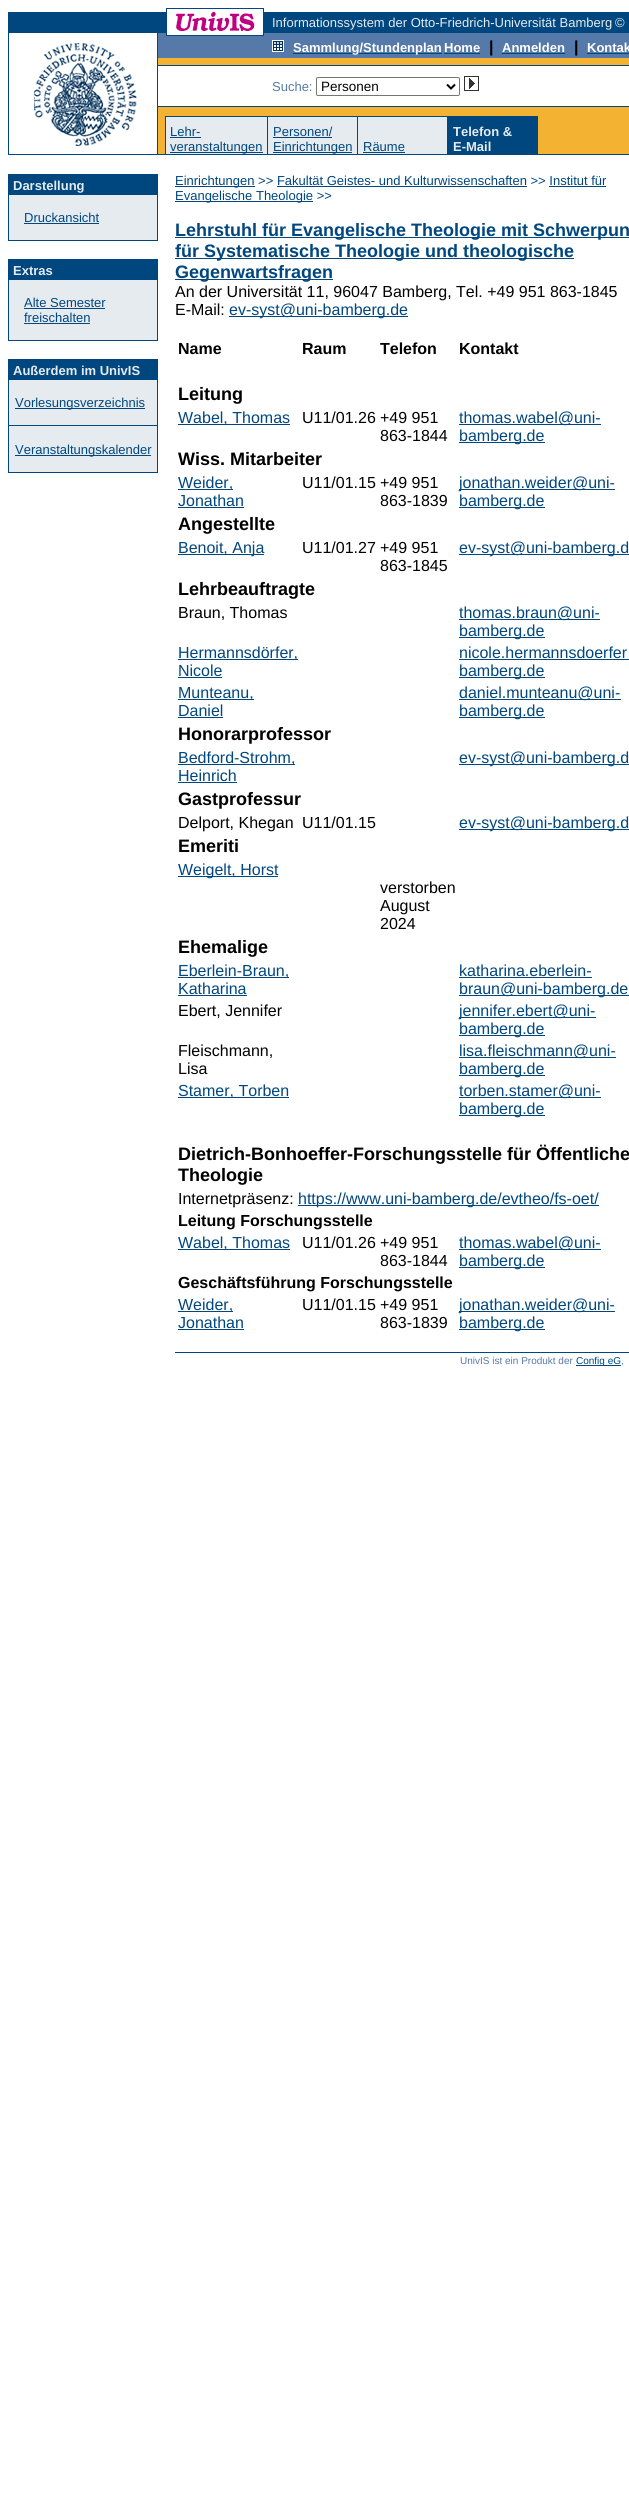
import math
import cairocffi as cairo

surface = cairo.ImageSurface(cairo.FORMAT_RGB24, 629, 2516)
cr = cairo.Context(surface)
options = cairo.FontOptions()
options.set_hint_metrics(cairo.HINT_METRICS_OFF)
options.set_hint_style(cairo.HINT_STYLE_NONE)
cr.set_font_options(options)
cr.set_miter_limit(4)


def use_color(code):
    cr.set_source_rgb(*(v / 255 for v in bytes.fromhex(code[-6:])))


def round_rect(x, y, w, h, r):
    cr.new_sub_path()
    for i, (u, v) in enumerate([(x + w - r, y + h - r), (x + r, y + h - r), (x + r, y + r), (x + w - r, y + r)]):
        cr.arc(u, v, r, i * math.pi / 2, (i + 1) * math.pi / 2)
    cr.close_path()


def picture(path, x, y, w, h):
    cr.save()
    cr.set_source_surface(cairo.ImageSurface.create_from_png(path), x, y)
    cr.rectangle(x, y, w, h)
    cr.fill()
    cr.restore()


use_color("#ffffff")
cr.paint()
use_color("#00467f")
cr.rectangle(166, 8, 98, 1)
cr.fill()
cr.rectangle(166, 9, 1, 3)
cr.fill()
cr.rectangle(263, 9, 1, 23)
cr.fill()
cr.rectangle(8, 12, 159, 20)
cr.fill()
picture("img1.png", 176, 12, 79, 19)
cr.rectangle(264, 12, 365, 20)
cr.fill()
cr.select_font_face("Liberation Sans")
cr.set_font_size(13)
use_color("#e5ebef")
cr.move_to(272, 27)
cr.show_text("Informationssystem der Otto-Friedrich-Universität Bamberg")
cr.move_to(615, 27)
cr.show_text("©")
use_color("#00467f")
cr.rectangle(8, 32, 621, 1)
cr.fill()
use_color("#ffffff")
cr.rectangle(167, 32, 96, 1)
cr.fill()
use_color("#00467f")
cr.rectangle(8, 33, 1, 122)
cr.fill()
picture("img2.png", 34, 43, 103, 103)
cr.rectangle(157, 33, 1, 121)
cr.fill()
use_color("#f3b231")
cr.rectangle(158, 58, 471, 96)
cr.fill()
use_color("#557aa9")
cr.rectangle(158, 33, 471, 2)
cr.fill()
use_color("#00467f")
cr.rectangle(166, 33, 1, 2)
cr.fill()
use_color("#ffffff")
cr.rectangle(167, 33, 96, 2)
cr.fill()
use_color("#00467f")
cr.rectangle(263, 33, 1, 2)
cr.fill()
use_color("#557aa9")
cr.rectangle(158, 35, 471, 2)
cr.fill()
use_color("#00467f")
cr.rectangle(166, 35, 98, 1)
cr.fill()
use_color("#557aa9")
cr.rectangle(158, 37, 471, 21)
cr.fill()
picture("img3.png", 272, 40, 12, 12)
use_color("#00467f")
cr.rectangle(293, 53, 149, 1)
cr.fill()
cr.select_font_face("Liberation Sans", cairo.FONT_SLANT_NORMAL, cairo.FONT_WEIGHT_BOLD)
use_color("#ffffff")
cr.move_to(293, 52)
cr.show_text("Sammlung/Stundenplan")
cr.move_to(444, 52)
cr.show_text("Home")
use_color("#00467f")
cr.rectangle(444, 53, 36, 1)
cr.fill()
cr.set_font_size(16)
use_color("#000000")
cr.move_to(489, 52)
cr.show_text("|")
cr.set_font_size(13)
use_color("#ffffff")
cr.move_to(502, 52)
cr.show_text("Anmelden")
use_color("#00467f")
cr.rectangle(502, 53, 63, 1)
cr.fill()
cr.set_font_size(16)
use_color("#000000")
cr.move_to(574, 52)
cr.show_text("|")
cr.set_font_size(13)
use_color("#ffffff")
cr.move_to(587, 52)
cr.show_text("Kontak")
use_color("#00467f")
cr.rectangle(587, 53, 42, 1)
cr.fill()
cr.rectangle(158, 65, 471, 1)
cr.fill()
use_color("#ffffff")
cr.rectangle(158, 66, 471, 40)
cr.fill()
cr.select_font_face("Liberation Sans")
use_color("#557aa9")
cr.move_to(272, 91)
cr.show_text("Suche:")
round_rect(316.5, 77.5, 143, 18, 1.5)
use_color("#767676")
cr.set_line_width(1)
cr.stroke()
cr.new_path()
cr.move_to(447, 84.5)
cr.line_to(451, 88.5)
cr.line_to(455, 84.5)
use_color("#000000")
cr.set_line_width(2)
cr.stroke()
cr.set_font_size(13.5)
cr.move_to(321, 91)
cr.show_text("Personen")
picture("img4.png", 464, 76, 15, 15)
use_color("#00467f")
cr.rectangle(158, 106, 471, 1)
cr.fill()
cr.rectangle(165, 116, 373, 1)
cr.fill()
cr.rectangle(165, 117, 1, 37)
cr.fill()
use_color("#e5ebef")
cr.rectangle(166, 117, 101, 37)
cr.fill()
use_color("#00467f")
cr.rectangle(267, 117, 1, 37)
cr.fill()
use_color("#e5ebef")
cr.rectangle(268, 117, 89, 37)
cr.fill()
use_color("#00467f")
cr.rectangle(357, 117, 1, 37)
cr.fill()
use_color("#e5ebef")
cr.rectangle(358, 117, 89, 37)
cr.fill()
use_color("#00467f")
cr.rectangle(447, 117, 91, 37)
cr.fill()
cr.set_font_size(13)
cr.move_to(170, 136)
cr.show_text("Lehr-")
cr.rectangle(170, 137, 31, 1)
cr.fill()
cr.rectangle(170, 152, 93, 1)
cr.fill()
cr.move_to(170, 151)
cr.show_text("veranstaltungen")
cr.move_to(273, 136)
cr.show_text("Personen/")
cr.rectangle(273, 137, 59, 1)
cr.fill()
cr.rectangle(273, 152, 79, 1)
cr.fill()
cr.move_to(273, 151)
cr.show_text("Einrichtungen")
cr.move_to(363, 151)
cr.show_text("Räume")
cr.rectangle(363, 152, 42, 1)
cr.fill()
cr.select_font_face("Liberation Sans", cairo.FONT_SLANT_NORMAL, cairo.FONT_WEIGHT_BOLD)
use_color("#e5ebef")
cr.move_to(453, 136)
cr.show_text("Telefon &")
cr.move_to(453, 151)
cr.show_text("E-Mail")
use_color("#00467f")
cr.rectangle(9, 154, 620, 1)
cr.fill()
cr.rectangle(8, 174, 1, 67)
cr.fill()
cr.rectangle(9, 174, 148, 21)
cr.fill()
cr.rectangle(157, 174, 1, 67)
cr.fill()
use_color("#e5ebef")
cr.move_to(13, 190)
cr.show_text("Darstellung")
cr.rectangle(9, 195, 148, 45)
cr.fill()
cr.select_font_face("Liberation Sans")
use_color("#00467f")
cr.move_to(24, 222)
cr.show_text("Druckansicht")
cr.rectangle(24, 223, 75, 1)
cr.fill()
cr.rectangle(9, 240, 148, 1)
cr.fill()
cr.rectangle(8, 259, 1, 82)
cr.fill()
cr.rectangle(9, 259, 148, 21)
cr.fill()
cr.rectangle(157, 259, 1, 82)
cr.fill()
cr.select_font_face("Liberation Sans", cairo.FONT_SLANT_NORMAL, cairo.FONT_WEIGHT_BOLD)
use_color("#e5ebef")
cr.move_to(13, 275)
cr.show_text("Extras")
cr.rectangle(9, 280, 148, 60)
cr.fill()
cr.select_font_face("Liberation Sans")
use_color("#00467f")
cr.move_to(24, 307)
cr.show_text("Alte Semester")
cr.rectangle(24, 308, 81, 1)
cr.fill()
cr.move_to(24, 322)
cr.show_text("freischalten")
cr.rectangle(24, 323, 66, 1)
cr.fill()
cr.rectangle(9, 340, 148, 1)
cr.fill()
cr.rectangle(8, 359, 1, 114)
cr.fill()
cr.rectangle(9, 359, 148, 21)
cr.fill()
cr.rectangle(157, 359, 1, 114)
cr.fill()
cr.select_font_face("Liberation Sans", cairo.FONT_SLANT_NORMAL, cairo.FONT_WEIGHT_BOLD)
use_color("#e5ebef")
cr.move_to(13, 375)
cr.show_text("Außerdem im UnivIS")
cr.rectangle(9, 380, 148, 45)
cr.fill()
use_color("#00467f")
cr.rectangle(15, 408, 130, 1)
cr.fill()
cr.select_font_face("Liberation Sans")
cr.move_to(15, 407)
cr.show_text("Vorlesungsverzeichnis")
cr.rectangle(9, 425, 148, 1)
cr.fill()
use_color("#e5ebef")
cr.rectangle(9, 426, 148, 1)
cr.fill()
cr.rectangle(9, 427, 148, 45)
cr.fill()
use_color("#00467f")
cr.rectangle(15, 455, 136, 1)
cr.fill()
cr.move_to(15, 454)
cr.show_text("Veranstaltungskalender")
cr.rectangle(9, 472, 148, 1)
cr.fill()
cr.rectangle(175, 186, 80, 1)
cr.fill()
cr.move_to(175, 185)
cr.show_text("Einrichtungen >> Fakultät Geistes- und Kulturwissenschaften >> Institut für")
cr.rectangle(277, 186, 250, 1)
cr.fill()
cr.rectangle(549, 186, 57, 1)
cr.fill()
cr.rectangle(175, 201, 138, 1)
cr.fill()
cr.move_to(175, 200)
cr.show_text("Evangelische Theologie >>")
cr.rectangle(175, 237, 454, 1)
cr.fill()
cr.select_font_face("Liberation Sans", cairo.FONT_SLANT_NORMAL, cairo.FONT_WEIGHT_BOLD)
cr.set_font_size(18)
cr.move_to(175, 236)
cr.show_text("Lehrstuhl für Evangelische Theologie mit Schwerpun")
cr.rectangle(175, 258, 399, 1)
cr.fill()
cr.move_to(175, 257)
cr.show_text("für Systematische Theologie und theologische")
cr.rectangle(175, 279, 158, 1)
cr.fill()
cr.move_to(175, 278)
cr.show_text("Gegenwartsfragen")
cr.select_font_face("Liberation Sans")
cr.set_font_size(16)
use_color("#000000")
cr.move_to(175, 297)
cr.show_text("An der Universität 11, 96047 Bamberg, Tel. +49 951 863-1845")
cr.move_to(175, 315)
cr.show_text("E-Mail:")
use_color("#00467f")
cr.rectangle(229, 316, 179, 1)
cr.fill()
cr.move_to(229, 315)
cr.show_text("ev-syst@uni-bamberg.de")
cr.select_font_face("Liberation Sans", cairo.FONT_SLANT_NORMAL, cairo.FONT_WEIGHT_BOLD)
use_color("#000000")
cr.move_to(178, 354)
cr.show_text("Name")
cr.move_to(302, 354)
cr.show_text("Raum")
cr.move_to(380, 354)
cr.show_text("Telefon")
cr.move_to(459, 354)
cr.show_text("Kontakt")
cr.set_font_size(18)
cr.move_to(178, 400)
cr.show_text("Leitung")
use_color("#00467f")
cr.rectangle(178, 424, 112, 1)
cr.fill()
cr.select_font_face("Liberation Sans")
cr.set_font_size(16)
cr.move_to(178, 423)
cr.show_text("Wabel, Thomas")
use_color("#000000")
cr.move_to(302, 423)
cr.show_text("U11/01.26")
cr.move_to(380, 423)
cr.show_text("+49 951")
cr.move_to(380, 441)
cr.show_text("863-1844")
use_color("#00467f")
cr.rectangle(459, 424, 142, 1)
cr.fill()
cr.move_to(459, 423)
cr.show_text("thomas.wabel@uni-")
cr.rectangle(459, 442, 86, 1)
cr.fill()
cr.move_to(459, 441)
cr.show_text("bamberg.de")
cr.select_font_face("Liberation Sans", cairo.FONT_SLANT_NORMAL, cairo.FONT_WEIGHT_BOLD)
cr.set_font_size(18)
use_color("#000000")
cr.move_to(178, 465)
cr.show_text("Wiss. Mitarbeiter")
use_color("#00467f")
cr.rectangle(178, 489, 55, 1)
cr.fill()
cr.select_font_face("Liberation Sans")
cr.set_font_size(16)
cr.move_to(178, 488)
cr.show_text("Weider,")
cr.move_to(178, 506)
cr.show_text("Jonathan")
cr.rectangle(178, 507, 66, 1)
cr.fill()
use_color("#000000")
cr.move_to(302, 488)
cr.show_text("U11/01.15")
cr.move_to(380, 488)
cr.show_text("+49 951")
cr.move_to(380, 506)
cr.show_text("863-1839")
use_color("#00467f")
cr.rectangle(459, 489, 156, 1)
cr.fill()
cr.move_to(459, 488)
cr.show_text("jonathan.weider@uni-")
cr.rectangle(459, 507, 86, 1)
cr.fill()
cr.move_to(459, 506)
cr.show_text("bamberg.de")
cr.select_font_face("Liberation Sans", cairo.FONT_SLANT_NORMAL, cairo.FONT_WEIGHT_BOLD)
cr.set_font_size(18)
use_color("#000000")
cr.move_to(178, 530)
cr.show_text("Angestellte")
use_color("#00467f")
cr.rectangle(178, 554, 86, 1)
cr.fill()
cr.select_font_face("Liberation Sans")
cr.set_font_size(16)
cr.move_to(178, 553)
cr.show_text("Benoit, Anja")
use_color("#000000")
cr.move_to(302, 553)
cr.show_text("U11/01.27")
cr.move_to(380, 553)
cr.show_text("+49 951")
cr.move_to(380, 571)
cr.show_text("863-1845")
use_color("#00467f")
cr.rectangle(459, 554, 170, 1)
cr.fill()
cr.move_to(459, 553)
cr.show_text("ev-syst@uni-bamberg.d")
cr.select_font_face("Liberation Sans", cairo.FONT_SLANT_NORMAL, cairo.FONT_WEIGHT_BOLD)
cr.set_font_size(18)
use_color("#000000")
cr.move_to(178, 595)
cr.show_text("Lehrbeauftragte")
cr.select_font_face("Liberation Sans")
cr.set_font_size(16)
cr.move_to(178, 618)
cr.show_text("Braun, Thomas")
use_color("#00467f")
cr.rectangle(459, 619, 141, 1)
cr.fill()
cr.move_to(459, 618)
cr.show_text("thomas.braun@uni-")
cr.rectangle(459, 637, 86, 1)
cr.fill()
cr.move_to(459, 636)
cr.show_text("bamberg.de")
cr.rectangle(178, 659, 120, 1)
cr.fill()
cr.move_to(178, 658)
cr.show_text("Hermannsdörfer,")
cr.move_to(178, 676)
cr.show_text("Nicole")
cr.rectangle(178, 677, 44, 1)
cr.fill()
cr.move_to(459, 658)
cr.show_text("nicole.hermannsdoerfer")
cr.rectangle(459, 659, 170, 1)
cr.fill()
cr.rectangle(459, 677, 86, 1)
cr.fill()
cr.move_to(459, 676)
cr.show_text("bamberg.de")
cr.rectangle(178, 699, 76, 1)
cr.fill()
cr.move_to(178, 698)
cr.show_text("Munteanu,")
cr.move_to(178, 716)
cr.show_text("Daniel")
cr.rectangle(178, 717, 45, 1)
cr.fill()
cr.rectangle(459, 699, 162, 1)
cr.fill()
cr.move_to(459, 698)
cr.show_text("daniel.munteanu@uni-")
cr.rectangle(459, 717, 86, 1)
cr.fill()
cr.move_to(459, 716)
cr.show_text("bamberg.de")
cr.select_font_face("Liberation Sans", cairo.FONT_SLANT_NORMAL, cairo.FONT_WEIGHT_BOLD)
cr.set_font_size(18)
use_color("#000000")
cr.move_to(178, 740)
cr.show_text("Honorarprofessor")
use_color("#00467f")
cr.rectangle(178, 764, 117, 1)
cr.fill()
cr.select_font_face("Liberation Sans")
cr.set_font_size(16)
cr.move_to(178, 763)
cr.show_text("Bedford-Strohm,")
cr.move_to(178, 781)
cr.show_text("Heinrich")
cr.rectangle(178, 782, 59, 1)
cr.fill()
cr.rectangle(459, 764, 170, 1)
cr.fill()
cr.move_to(459, 763)
cr.show_text("ev-syst@uni-bamberg.d")
cr.select_font_face("Liberation Sans", cairo.FONT_SLANT_NORMAL, cairo.FONT_WEIGHT_BOLD)
cr.set_font_size(18)
use_color("#000000")
cr.move_to(178, 805)
cr.show_text("Gastprofessur")
cr.select_font_face("Liberation Sans")
cr.set_font_size(16)
cr.move_to(178, 828)
cr.show_text("Delport, Khegan")
cr.move_to(302, 828)
cr.show_text("U11/01.15")
use_color("#00467f")
cr.rectangle(459, 829, 170, 1)
cr.fill()
cr.move_to(459, 828)
cr.show_text("ev-syst@uni-bamberg.d")
cr.select_font_face("Liberation Sans", cairo.FONT_SLANT_NORMAL, cairo.FONT_WEIGHT_BOLD)
cr.set_font_size(18)
use_color("#000000")
cr.move_to(178, 852)
cr.show_text("Emeriti")
use_color("#00467f")
cr.rectangle(178, 876, 100, 1)
cr.fill()
cr.select_font_face("Liberation Sans")
cr.set_font_size(16)
cr.move_to(178, 875)
cr.show_text("Weigelt, Horst")
use_color("#000000")
cr.move_to(380, 893)
cr.show_text("verstorben")
cr.move_to(380, 911)
cr.show_text("August")
cr.move_to(380, 929)
cr.show_text("2024")
cr.select_font_face("Liberation Sans", cairo.FONT_SLANT_NORMAL, cairo.FONT_WEIGHT_BOLD)
cr.set_font_size(18)
cr.move_to(178, 953)
cr.show_text("Ehemalige")
use_color("#00467f")
cr.rectangle(178, 977, 111, 1)
cr.fill()
cr.select_font_face("Liberation Sans")
cr.set_font_size(16)
cr.move_to(178, 976)
cr.show_text("Eberlein-Braun,")
cr.move_to(178, 994)
cr.show_text("Katharina")
cr.rectangle(178, 995, 69, 1)
cr.fill()
cr.move_to(459, 976)
cr.show_text("katharina.eberlein-")
cr.rectangle(459, 977, 133, 1)
cr.fill()
cr.rectangle(459, 995, 170, 1)
cr.fill()
cr.move_to(459, 994)
cr.show_text("braun@uni-bamberg.de")
use_color("#000000")
cr.move_to(178, 1016)
cr.show_text("Ebert, Jennifer")
use_color("#00467f")
cr.rectangle(459, 1017, 137, 1)
cr.fill()
cr.move_to(459, 1016)
cr.show_text("jennifer.ebert@uni-")
cr.rectangle(459, 1035, 86, 1)
cr.fill()
cr.move_to(459, 1034)
cr.show_text("bamberg.de")
use_color("#000000")
cr.move_to(178, 1056)
cr.show_text("Fleischmann,")
cr.move_to(178, 1074)
cr.show_text("Lisa")
use_color("#00467f")
cr.rectangle(459, 1057, 157, 1)
cr.fill()
cr.move_to(459, 1056)
cr.show_text("lisa.fleischmann@uni-")
cr.rectangle(459, 1075, 86, 1)
cr.fill()
cr.move_to(459, 1074)
cr.show_text("bamberg.de")
cr.rectangle(178, 1097, 111, 1)
cr.fill()
cr.move_to(178, 1096)
cr.show_text("Stamer, Torben")
cr.rectangle(459, 1097, 142, 1)
cr.fill()
cr.move_to(459, 1096)
cr.show_text("torben.stamer@uni-")
cr.rectangle(459, 1115, 86, 1)
cr.fill()
cr.move_to(459, 1114)
cr.show_text("bamberg.de")
cr.select_font_face("Liberation Sans", cairo.FONT_SLANT_NORMAL, cairo.FONT_WEIGHT_BOLD)
cr.set_font_size(18)
use_color("#000000")
cr.move_to(178, 1160)
cr.show_text("Dietrich-Bonhoeffer-Forschungsstelle für Öffentliche")
cr.move_to(178, 1181)
cr.show_text("Theologie")
cr.select_font_face("Liberation Sans")
cr.set_font_size(16)
cr.move_to(178, 1204)
cr.show_text("Internetpräsenz:")
use_color("#00467f")
cr.rectangle(298, 1205, 301, 1)
cr.fill()
cr.move_to(298, 1204)
cr.show_text("https://www.uni-bamberg.de/evtheo/fs-oet/")
cr.select_font_face("Liberation Sans", cairo.FONT_SLANT_NORMAL, cairo.FONT_WEIGHT_BOLD)
use_color("#000000")
cr.move_to(178, 1226)
cr.show_text("Leitung Forschungsstelle")
use_color("#00467f")
cr.rectangle(178, 1249, 112, 1)
cr.fill()
cr.select_font_face("Liberation Sans")
cr.move_to(178, 1248)
cr.show_text("Wabel, Thomas")
use_color("#000000")
cr.move_to(302, 1248)
cr.show_text("U11/01.26")
cr.move_to(380, 1248)
cr.show_text("+49 951")
cr.move_to(380, 1266)
cr.show_text("863-1844")
use_color("#00467f")
cr.rectangle(459, 1249, 142, 1)
cr.fill()
cr.move_to(459, 1248)
cr.show_text("thomas.wabel@uni-")
cr.rectangle(459, 1267, 86, 1)
cr.fill()
cr.move_to(459, 1266)
cr.show_text("bamberg.de")
cr.select_font_face("Liberation Sans", cairo.FONT_SLANT_NORMAL, cairo.FONT_WEIGHT_BOLD)
use_color("#000000")
cr.move_to(178, 1288)
cr.show_text("Geschäftsführung Forschungsstelle")
use_color("#00467f")
cr.rectangle(178, 1311, 55, 1)
cr.fill()
cr.select_font_face("Liberation Sans")
cr.move_to(178, 1310)
cr.show_text("Weider,")
cr.move_to(178, 1328)
cr.show_text("Jonathan")
cr.rectangle(178, 1329, 66, 1)
cr.fill()
use_color("#000000")
cr.move_to(302, 1310)
cr.show_text("U11/01.15")
cr.move_to(380, 1310)
cr.show_text("+49 951")
cr.move_to(380, 1328)
cr.show_text("863-1839")
use_color("#00467f")
cr.rectangle(459, 1311, 156, 1)
cr.fill()
cr.move_to(459, 1310)
cr.show_text("jonathan.weider@uni-")
cr.rectangle(459, 1329, 86, 1)
cr.fill()
cr.move_to(459, 1328)
cr.show_text("bamberg.de")
cr.rectangle(175, 1352, 454, 1)
cr.fill()
cr.set_font_size(10)
use_color("#557aa9")
cr.move_to(460, 1364)
cr.show_text("UnivIS ist ein Produkt der")
use_color("#00467f")
cr.rectangle(576, 1365, 45, 1)
cr.fill()
cr.move_to(576, 1364)
cr.show_text("Config eG")
use_color("#557aa9")
cr.move_to(621, 1364)
cr.show_text(",")
surface.write_to_png("result.png")
